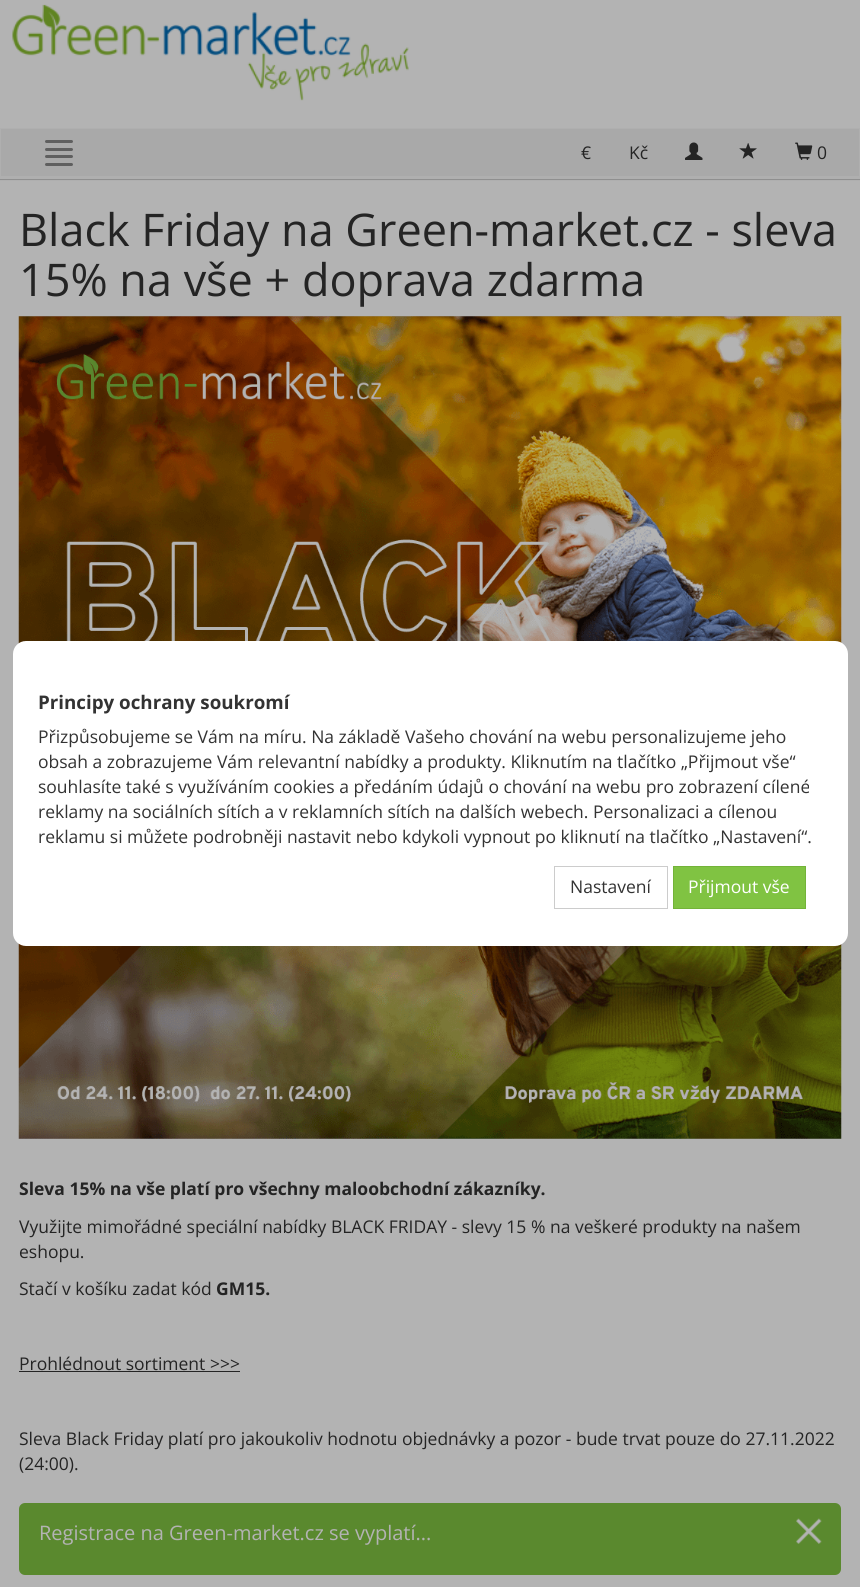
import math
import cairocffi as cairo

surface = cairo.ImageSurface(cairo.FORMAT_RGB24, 860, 1587)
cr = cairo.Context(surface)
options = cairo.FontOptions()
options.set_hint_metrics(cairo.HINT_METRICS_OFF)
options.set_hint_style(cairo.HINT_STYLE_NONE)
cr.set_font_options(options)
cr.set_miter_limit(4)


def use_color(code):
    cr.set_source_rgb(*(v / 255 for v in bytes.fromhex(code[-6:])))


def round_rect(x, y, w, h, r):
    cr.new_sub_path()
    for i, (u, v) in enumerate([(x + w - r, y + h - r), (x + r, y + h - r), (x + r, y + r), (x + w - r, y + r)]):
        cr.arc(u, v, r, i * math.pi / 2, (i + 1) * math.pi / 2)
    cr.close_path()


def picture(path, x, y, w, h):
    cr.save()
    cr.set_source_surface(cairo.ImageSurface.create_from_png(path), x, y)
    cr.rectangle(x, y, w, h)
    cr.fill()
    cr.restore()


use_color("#b3b3b3")
cr.paint()
picture("img1.png", 12, 4, 397, 97)
use_color("#afafaf")
cr.rectangle(0, 128, 860, 53)
cr.fill()
use_color("#8f8f8f")
cr.rectangle(0, 179, 860, 1)
cr.fill()
use_color("#a9a9a9")
cr.rectangle(1, 129, 858, 47)
cr.fill()
use_color("#5f5f5f")
round_rect(45, 140, 28, 3, 1.5)
cr.fill()
round_rect(45, 148, 28, 3, 1.5)
cr.fill()
round_rect(45, 155, 28, 3, 1.5)
cr.fill()
round_rect(45, 163, 28, 3, 1.5)
cr.fill()
cr.select_font_face("Open Sans")
cr.set_font_size(17.5)
use_color("#242424")
cr.move_to(581, 159)
cr.show_text("€")
cr.move_to(629, 159)
cr.show_text("Kč")
picture("img2.png", 685, 142, 18, 18)
picture("img3.png", 739, 143, 18, 16)
picture("img4.png", 795, 142, 18, 18)
cr.move_to(817, 159)
cr.show_text("0")
cr.set_font_size(45)
cr.move_to(19, 246)
cr.show_text("Black Friday na Green-market.cz - sleva")
cr.move_to(19, 296)
cr.show_text("15% na vše + doprava zdarma")
picture("img5.png", 18, 316, 824, 823)
cr.select_font_face("Open Sans", cairo.FONT_SLANT_NORMAL, cairo.FONT_WEIGHT_BOLD)
cr.set_font_size(17.5)
cr.move_to(19, 1195)
cr.show_text("Sleva 15% na vše platí pro všechny maloobchodní zákazníky.")
cr.select_font_face("Open Sans")
cr.move_to(19, 1233)
cr.show_text("Využijte mimořádné speciální nabídky BLACK FRIDAY - slevy 15 % na veškeré produkty na našem")
cr.move_to(19, 1258)
cr.show_text("eshopu.")
cr.move_to(19, 1295)
cr.show_text("Stačí v košíku zadat kód")
cr.select_font_face("Open Sans", cairo.FONT_SLANT_NORMAL, cairo.FONT_WEIGHT_BOLD)
cr.move_to(216, 1295)
cr.show_text("GM15.")
cr.select_font_face("Open Sans")
cr.move_to(19, 1370)
cr.show_text("Prohlédnout sortiment >>>")
cr.rectangle(19, 1371, 221, 1)
cr.fill()
cr.move_to(19, 1445)
cr.show_text("Sleva Black Friday platí pro jakoukoliv hodnotu objednávky a pozor - bude trvat pouze do 27.11.2022")
cr.move_to(19, 1470)
cr.show_text("(24:00).")
use_color("#ffffff")
round_rect(13, 641, 835, 305, 13)
cr.fill()
cr.select_font_face("Open Sans", cairo.FONT_SLANT_NORMAL, cairo.FONT_WEIGHT_BOLD)
cr.set_font_size(18.75)
use_color("#333333")
cr.move_to(38, 709)
cr.show_text("Principy ochrany soukromí")
cr.select_font_face("Open Sans")
cr.set_font_size(17.5)
cr.move_to(38, 743)
cr.show_text("Přizpůsobujeme se Vám na míru. Na základě Vašeho chování na webu personalizujeme jeho")
cr.move_to(38, 768)
cr.show_text("obsah a zobrazujeme Vám relevantní nabídky a produkty. Kliknutím na tlačítko „Přijmout vše“")
cr.move_to(38, 793)
cr.show_text("souhlasíte také s využíváním cookies a předáním údajů o chování na webu pro zobrazení cílené")
cr.move_to(38, 818)
cr.show_text("reklamy na sociálních sítích a v reklamních sítích na dalších webech. Personalizaci a cílenou")
cr.move_to(38, 843)
cr.show_text("reklamu si můžete podrobněji nastavit nebo kdykoli vypnout po kliknutí na tlačítko „Nastavení“.")
cr.rectangle(554.5, 866.5, 113, 42)
use_color("#cccccc")
cr.set_line_width(1)
cr.stroke()
use_color("#333333")
cr.move_to(570, 893)
cr.show_text("Nastavení")
use_color("#80c342")
cr.rectangle(673.5, 866.5, 132, 42)
cr.fill_preserve()
use_color("#73b339")
cr.stroke()
use_color("#ffffff")
cr.move_to(688, 893)
cr.show_text("Přijmout vše")
use_color("#5a892e")
round_rect(19, 1503, 822, 72, 6)
cr.fill()
cr.set_font_size(20)
use_color("#b3b3b3")
cr.move_to(39, 1540)
cr.show_text("Registrace na Green-market.cz se vyplatí...")
picture("img6.png", 796, 1518, 26, 26)
surface.write_to_png("result.png")
